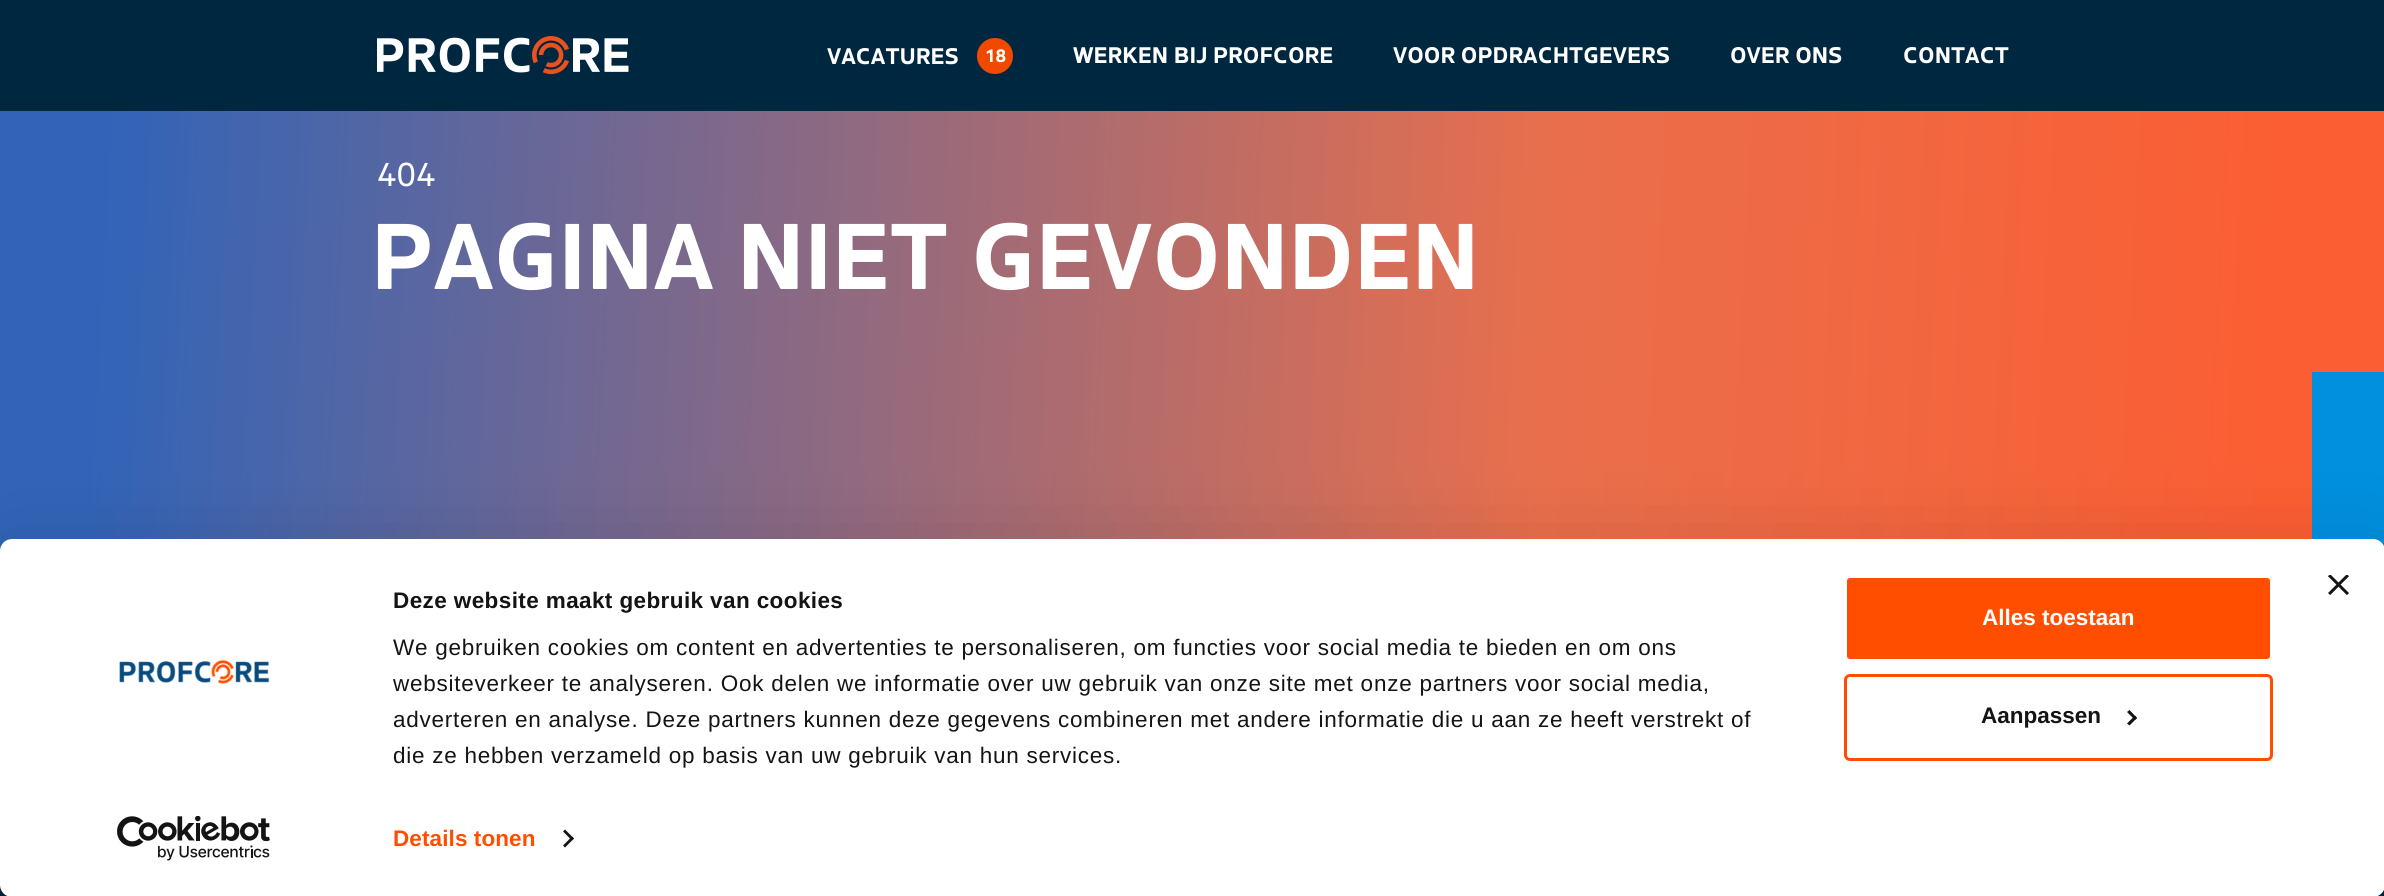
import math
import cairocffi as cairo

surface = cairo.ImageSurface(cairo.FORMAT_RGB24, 2384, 896)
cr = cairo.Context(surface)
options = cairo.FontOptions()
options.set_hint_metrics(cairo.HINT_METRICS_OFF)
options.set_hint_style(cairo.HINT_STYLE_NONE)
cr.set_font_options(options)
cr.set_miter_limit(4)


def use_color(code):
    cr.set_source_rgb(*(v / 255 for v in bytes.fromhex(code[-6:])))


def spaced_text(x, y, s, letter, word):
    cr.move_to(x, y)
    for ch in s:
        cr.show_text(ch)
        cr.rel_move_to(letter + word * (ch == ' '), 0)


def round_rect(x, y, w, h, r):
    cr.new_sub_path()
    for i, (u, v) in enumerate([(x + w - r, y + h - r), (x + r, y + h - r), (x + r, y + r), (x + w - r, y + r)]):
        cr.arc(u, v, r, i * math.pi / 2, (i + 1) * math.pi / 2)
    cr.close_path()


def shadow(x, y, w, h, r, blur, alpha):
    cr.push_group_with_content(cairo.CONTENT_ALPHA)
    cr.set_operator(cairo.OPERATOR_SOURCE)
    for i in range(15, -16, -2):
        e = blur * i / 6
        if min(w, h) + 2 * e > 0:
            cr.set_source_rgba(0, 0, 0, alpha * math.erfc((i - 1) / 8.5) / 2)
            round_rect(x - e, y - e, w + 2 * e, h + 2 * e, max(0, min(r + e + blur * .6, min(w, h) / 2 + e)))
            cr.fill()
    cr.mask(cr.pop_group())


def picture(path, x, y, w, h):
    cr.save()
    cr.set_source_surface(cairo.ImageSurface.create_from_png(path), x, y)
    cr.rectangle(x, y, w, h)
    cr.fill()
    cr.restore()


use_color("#002740")
cr.paint()
picture("img1.png", 377, 36, 252, 39)
cr.select_font_face("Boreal", cairo.FONT_SLANT_NORMAL, cairo.FONT_WEIGHT_BOLD)
cr.set_font_size(22.5)
use_color("#ffffff")
cr.move_to(827, 64)
cr.show_text("VACATURES")
use_color("#f14a00")
cr.new_path()
cr.arc(995, 56, 18, 0, 2 * math.pi)
cr.fill()
cr.set_font_size(18)
use_color("#ffffff")
cr.move_to(985, 62)
cr.show_text("18")
cr.set_font_size(22.5)
cr.move_to(1073, 63)
cr.show_text("WERKEN BIJ PROFCORE")
cr.move_to(1393, 63)
cr.show_text("VOOR OPDRACHTGEVERS")
cr.move_to(1730, 63)
cr.show_text("OVER ONS")
cr.move_to(1903, 63)
cr.show_text("CONTACT")
gradient = cairo.LinearGradient(-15, 147, 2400, 273)
gradient.add_color_stop_rgba(0.05, 0.192, 0.392, 0.722, 1)
gradient.add_color_stop_rgba(0.65, 0.914, 0.435, 0.298, 1)
gradient.add_color_stop_rgba(0.95, 0.984, 0.369, 0.2, 1)
cr.set_source(gradient)
cr.rectangle(0, 111, 2384, 440)
cr.fill()
cr.select_font_face("Boreal")
cr.set_font_size(33)
use_color("#ffffff")
cr.move_to(377, 186)
cr.show_text("404")
cr.select_font_face("Boreal", cairo.FONT_SLANT_NORMAL, cairo.FONT_WEIGHT_BOLD)
cr.set_font_size(93)
cr.move_to(371, 289)
cr.show_text("PAGINA NIET GEVONDEN")
use_color("#0090de")
cr.rectangle(2312, 372, 72, 175)
cr.fill()
use_color("#000000")
shadow(0, 584, 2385, 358, 12, 52.5, 0.3)
use_color("#ffffff")
round_rect(0, 539, 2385, 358, 12)
cr.fill()
picture("img2.png", 2328, 575, 21, 20)
picture("img3.png", 119, 660, 151, 24)
picture("img4.png", 117, 816, 153, 45)
cr.select_font_face("Liberation Sans", cairo.FONT_SLANT_NORMAL, cairo.FONT_WEIGHT_BOLD)
cr.set_font_size(22.5)
use_color("#141414")
spaced_text(393, 608, "Deze website maakt gebruik van cookies", 0.4, 0)
cr.select_font_face("Liberation Sans")
spaced_text(393, 655, "We gebruiken cookies om content en advertenties te personaliseren, om functies voor social media te bieden en om ons", 0.75, 0)
spaced_text(393, 691, "websiteverkeer te analyseren. Ook delen we informatie over uw gebruik van onze site met onze partners voor social media,", 0.75, 0)
spaced_text(393, 727, "adverteren en analyse. Deze partners kunnen deze gegevens combineren met andere informatie die u aan ze heeft verstrekt of", 0.75, 0)
spaced_text(393, 763, "die ze hebben verzameld op basis van uw gebruik van hun services.", 0.75, 0)
cr.select_font_face("Liberation Sans", cairo.FONT_SLANT_NORMAL, cairo.FONT_WEIGHT_BOLD)
use_color("#ff4e00")
spaced_text(393, 846, "Details tonen", 0.1, 0)
use_color("#141414")
cr.new_path()
cr.move_to(565, 829.5)
cr.line_to(574, 838.5)
cr.line_to(572, 840.5)
cr.line_to(563, 831.5)
cr.close_path()
cr.fill()
cr.new_path()
cr.move_to(572, 836.5)
cr.line_to(574, 838.5)
cr.line_to(565, 847.5)
cr.line_to(563, 845.5)
cr.close_path()
cr.fill()
use_color("#ff4e00")
round_rect(1845.5, 576.5, 426, 84, 4.5)
cr.fill_preserve()
use_color("#ffffff")
cr.set_line_width(3)
cr.stroke()
cr.move_to(1982, 625)
cr.show_text("Alles toestaan")
round_rect(1845.5, 675.5, 426, 84, 4.5)
use_color("#ff4e00")
cr.stroke()
use_color("#141414")
cr.move_to(1981, 723)
cr.show_text("Aanpassen")
cr.new_path()
cr.move_to(2129.5, 710)
cr.line_to(2137, 718)
cr.line_to(2135, 720)
cr.line_to(2127, 712)
cr.close_path()
cr.fill()
cr.new_path()
cr.move_to(2135, 715.5)
cr.line_to(2137, 718)
cr.line_to(2129.5, 725.5)
cr.line_to(2127, 723.5)
cr.close_path()
cr.fill()
surface.write_to_png("result.png")
